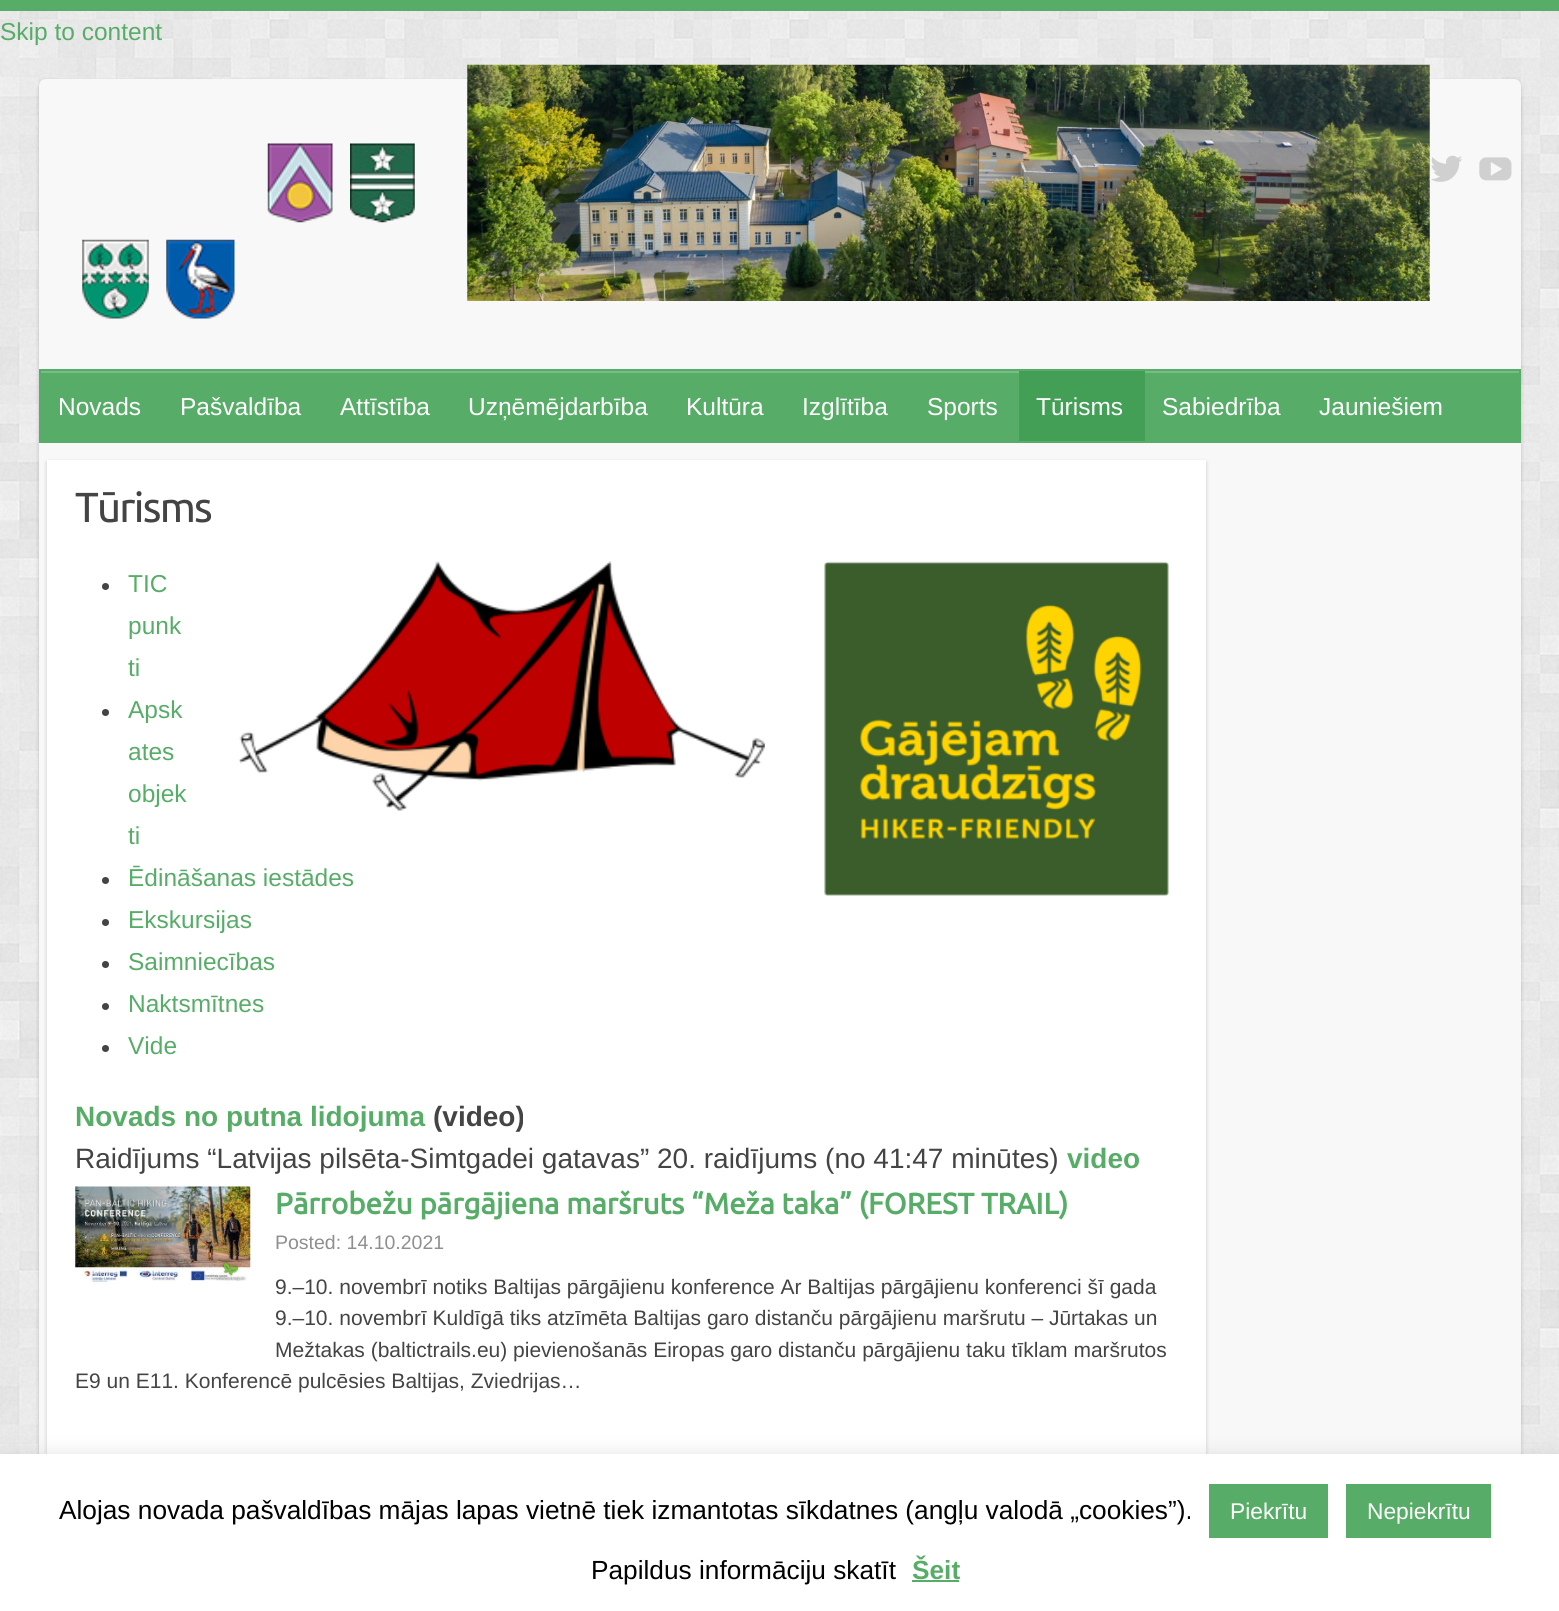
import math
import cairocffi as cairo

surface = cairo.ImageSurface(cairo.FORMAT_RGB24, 1559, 1611)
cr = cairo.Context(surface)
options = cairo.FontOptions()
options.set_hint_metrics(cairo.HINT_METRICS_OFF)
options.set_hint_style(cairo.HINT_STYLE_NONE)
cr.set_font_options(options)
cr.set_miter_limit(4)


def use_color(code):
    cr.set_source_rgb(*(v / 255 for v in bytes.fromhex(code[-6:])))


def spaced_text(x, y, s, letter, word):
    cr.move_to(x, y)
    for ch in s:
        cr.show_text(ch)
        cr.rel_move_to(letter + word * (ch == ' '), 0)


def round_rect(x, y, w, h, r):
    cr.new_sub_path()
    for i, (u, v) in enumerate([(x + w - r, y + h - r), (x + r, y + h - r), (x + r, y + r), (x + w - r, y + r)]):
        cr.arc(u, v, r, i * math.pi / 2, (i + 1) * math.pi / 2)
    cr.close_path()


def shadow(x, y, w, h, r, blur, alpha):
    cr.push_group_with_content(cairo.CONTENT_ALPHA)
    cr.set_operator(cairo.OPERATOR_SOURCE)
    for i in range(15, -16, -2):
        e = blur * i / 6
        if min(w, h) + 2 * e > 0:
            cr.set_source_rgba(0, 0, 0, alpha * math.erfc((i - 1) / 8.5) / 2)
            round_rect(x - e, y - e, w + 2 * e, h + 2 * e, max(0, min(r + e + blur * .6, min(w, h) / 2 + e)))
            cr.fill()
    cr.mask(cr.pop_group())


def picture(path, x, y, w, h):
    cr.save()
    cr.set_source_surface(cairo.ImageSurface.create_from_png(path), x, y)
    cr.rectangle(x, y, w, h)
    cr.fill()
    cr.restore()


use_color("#ffffff")
cr.paint()
picture("img1.png", 0, 11, 1559, 1443)
use_color("#57ad68")
cr.rectangle(0, 0, 1559, 11)
cr.fill()
cr.select_font_face("Liberation Sans")
cr.set_font_size(24.5)
cr.move_to(0, 40)
cr.show_text("Skip to content")
use_color("#000000")
shadow(39, 81, 1482, 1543, 7, 2, 0.2)
use_color("#f8f8f8")
round_rect(39, 79, 1482, 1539, 7)
cr.fill()
picture("img2.png", 467, 64, 963, 237)
picture("img3.png", 267, 143, 66, 80)
picture("img4.png", 350, 143, 65, 80)
picture("img5.png", 82, 239, 67, 80)
picture("img6.png", 166, 239, 69, 80)
picture("img7.png", 1431, 155, 31, 27)
picture("img8.png", 1479, 157, 33, 24)
use_color("#57ad68")
cr.rectangle(41, 373, 1478, 68)
cr.fill()
use_color("#79bd86")
cr.rectangle(40, 371, 1479, 2)
cr.fill()
cr.rectangle(40, 370, 1480, 72)
use_color("#57ad68")
cr.stroke()
use_color("#ffffff")
cr.move_to(58, 415)
cr.show_text("Novads")
cr.move_to(180, 415)
cr.show_text("Pašvaldība")
cr.move_to(340, 415)
cr.show_text("Attīstība")
cr.move_to(468, 415)
cr.show_text("Uzņēmējdarbība")
cr.move_to(686, 415)
cr.show_text("Kultūra")
cr.move_to(802, 415)
cr.show_text("Izglītība")
cr.move_to(927, 415)
cr.show_text("Sports")
use_color("#439f55")
cr.rectangle(1019, 371, 126, 70)
cr.fill()
use_color("#ffffff")
cr.move_to(1036, 415)
cr.show_text("Tūrisms")
cr.move_to(1162, 415)
cr.show_text("Sabiedrība")
cr.move_to(1319, 415)
cr.show_text("Jauniešiem")
use_color("#000000")
shadow(47, 462, 1159, 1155, 0, 2, 0.2)
use_color("#ffffff")
cr.rectangle(47, 460, 1159, 994)
cr.fill()
cr.select_font_face("Ubuntu")
cr.set_font_size(42)
use_color("#444444")
spaced_text(75, 522, "Tūrisms", -1.75, 0)
picture("img9.png", 239, 561, 526, 250)
picture("img10.png", 824, 561, 345, 335)
cr.arc(105.5, 586.5, 3.5, 0, 2 * math.pi)
cr.fill()
cr.select_font_face("Liberation Sans")
cr.set_font_size(24.5)
use_color("#57ad68")
cr.move_to(128, 592)
cr.show_text("TIC")
cr.move_to(128, 634)
cr.show_text("punk")
cr.move_to(128, 676)
cr.show_text("ti")
use_color("#444444")
cr.new_path()
cr.arc(105.5, 712.5, 3.5, 0, 2 * math.pi)
cr.fill()
use_color("#57ad68")
cr.move_to(128, 718)
cr.show_text("Apsk")
cr.move_to(128, 760)
cr.show_text("ates")
cr.move_to(128, 802)
cr.show_text("objek")
cr.move_to(128, 844)
cr.show_text("ti")
use_color("#444444")
cr.new_path()
cr.arc(105.5, 880.5, 3.5, 0, 2 * math.pi)
cr.fill()
use_color("#57ad68")
cr.move_to(128, 886)
cr.show_text("Ēdināšanas iestādes")
use_color("#444444")
cr.new_path()
cr.arc(105.5, 922.5, 3.5, 0, 2 * math.pi)
cr.fill()
use_color("#57ad68")
cr.move_to(128, 928)
cr.show_text("Ekskursijas")
use_color("#444444")
cr.new_path()
cr.arc(105.5, 964.5, 3.5, 0, 2 * math.pi)
cr.fill()
use_color("#57ad68")
cr.move_to(128, 970)
cr.show_text("Saimniecības")
use_color("#444444")
cr.new_path()
cr.arc(105.5, 1006.5, 3.5, 0, 2 * math.pi)
cr.fill()
use_color("#57ad68")
cr.move_to(128, 1012)
cr.show_text("Naktsmītnes")
use_color("#444444")
cr.new_path()
cr.arc(105.5, 1048.5, 3.5, 0, 2 * math.pi)
cr.fill()
use_color("#57ad68")
cr.move_to(128, 1054)
cr.show_text("Vide")
cr.select_font_face("Liberation Sans", cairo.FONT_SLANT_NORMAL, cairo.FONT_WEIGHT_BOLD)
cr.set_font_size(28)
cr.move_to(75, 1126)
cr.show_text("Novads no putna lidojuma")
use_color("#444444")
cr.move_to(433, 1126)
cr.show_text("(video)")
cr.select_font_face("Liberation Sans")
cr.move_to(75, 1168)
cr.show_text("Raidījums “Latvijas pilsēta-Simtgadei gatavas” 20. raidījums (no 41:47 minūtes)")
cr.select_font_face("Liberation Sans", cairo.FONT_SLANT_NORMAL, cairo.FONT_WEIGHT_BOLD)
use_color("#57ad68")
cr.move_to(1067, 1168)
cr.show_text("video")
picture("img11.png", 75, 1186, 176, 99)
cr.select_font_face("Ubuntu", cairo.FONT_SLANT_NORMAL, cairo.FONT_WEIGHT_BOLD)
cr.set_font_size(29.4)
cr.move_to(275, 1214)
cr.show_text("Pārrobežu pārgājiena maršruts “Meža taka” (FOREST TRAIL)")
cr.select_font_face("Liberation Sans")
cr.set_font_size(19.5)
use_color("#8f8f8f")
cr.move_to(275, 1249)
cr.show_text("Posted: 14.10.2021")
cr.set_font_size(21)
use_color("#444444")
cr.move_to(275, 1294)
cr.show_text("9.–10. novembrī notiks Baltijas pārgājienu konference Ar Baltijas pārgājienu konferenci šī gada")
cr.move_to(275, 1325)
cr.show_text("9.–10. novembrī Kuldīgā tiks atzīmēta Baltijas garo distanču pārgājienu maršrutu – Jūrtakas un")
cr.move_to(275, 1357)
cr.show_text("Mežtakas (baltictrails.eu) pievienošanās Eiropas garo distanču pārgājienu taku tīklam maršrutos")
cr.move_to(75, 1388)
cr.show_text("E9 un E11. Konferencē pulcēsies Baltijas, Zviedrijas…")
use_color("#acabab")
shadow(0, 1453, 1559, 157, 0, 9, 0.3)
use_color("#ffffff")
cr.rectangle(0, 1454, 1559, 157)
cr.fill()
cr.set_font_size(26.25)
use_color("#000000")
cr.move_to(59, 1519)
cr.show_text("Alojas novada pašvaldības mājas lapas vietnē tiek izmantotas sīkdatnes (angļu valodā „cookies”).")
use_color("#57ad68")
cr.rectangle(1209, 1484, 119, 54)
cr.fill()
cr.set_font_size(22.75)
use_color("#ffffff")
cr.move_to(1230, 1519)
cr.show_text("Piekrītu")
use_color("#57ad68")
cr.rectangle(1346, 1484, 145, 54)
cr.fill()
use_color("#ffffff")
cr.move_to(1367, 1519)
cr.show_text("Nepiekrītu")
cr.set_font_size(26.25)
use_color("#000000")
cr.move_to(591, 1579)
cr.show_text("Papildus informāciju skatīt")
cr.select_font_face("Liberation Sans", cairo.FONT_SLANT_NORMAL, cairo.FONT_WEIGHT_BOLD)
use_color("#57ad68")
cr.move_to(912, 1579)
cr.show_text("Šeit")
cr.rectangle(912, 1580, 47, 2)
cr.fill()
surface.write_to_png("result.png")
